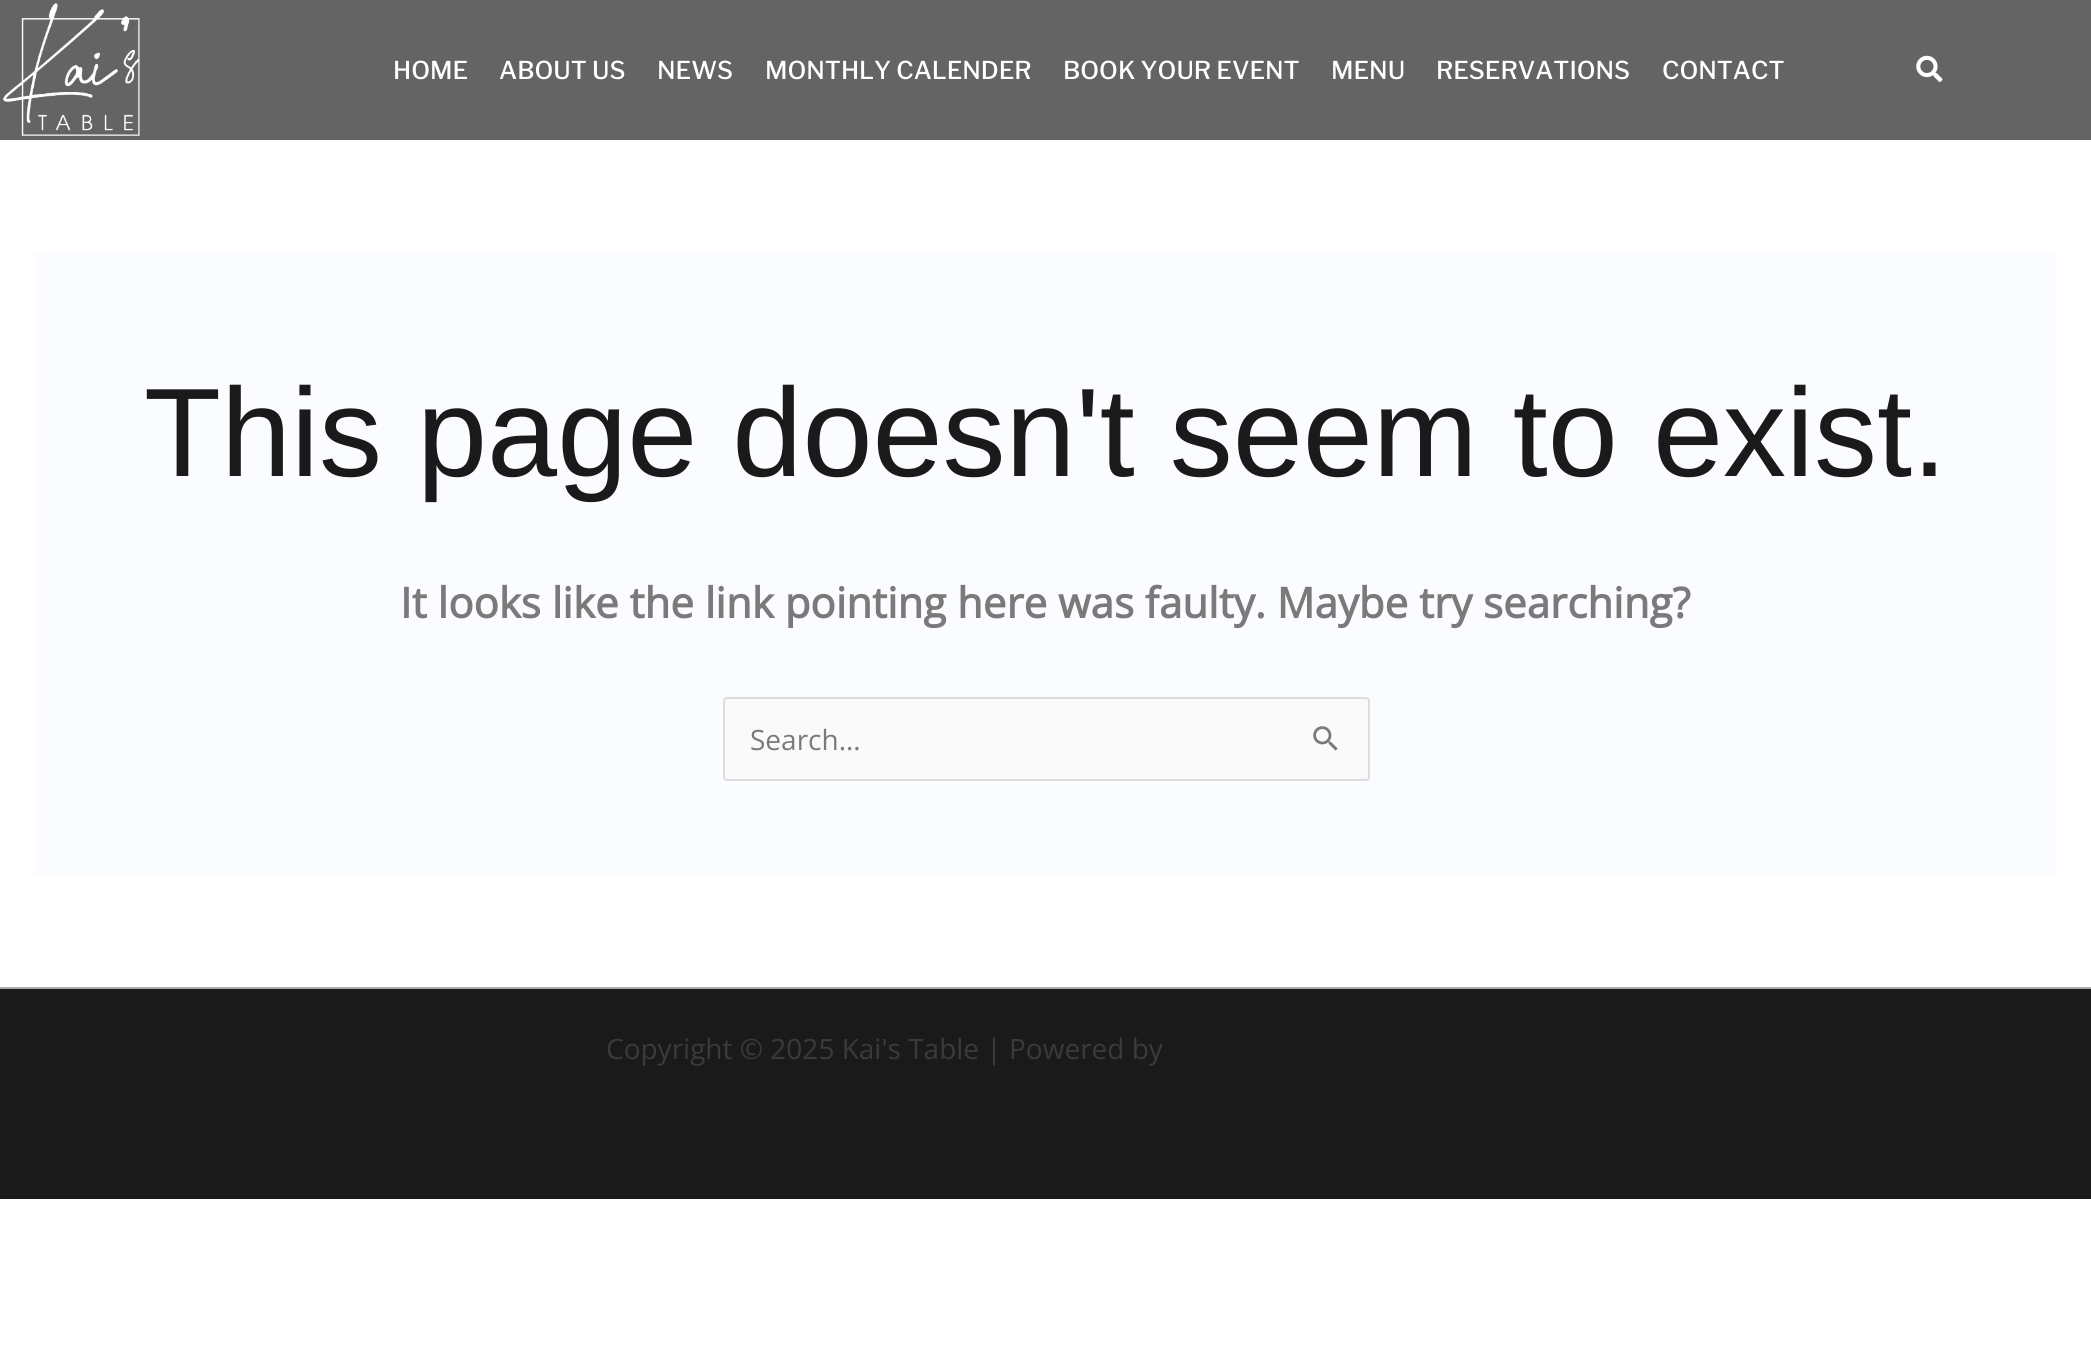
import math
import cairocffi as cairo

surface = cairo.ImageSurface(cairo.FORMAT_RGB24, 2091, 1369)
cr = cairo.Context(surface)
options = cairo.FontOptions()
options.set_hint_metrics(cairo.HINT_METRICS_OFF)
options.set_hint_style(cairo.HINT_STYLE_NONE)
cr.set_font_options(options)
cr.set_miter_limit(4)


def use_color(code):
    cr.set_source_rgb(*(v / 255 for v in bytes.fromhex(code[-6:])))


def round_rect(x, y, w, h, r):
    cr.new_sub_path()
    for i, (u, v) in enumerate([(x + w - r, y + h - r), (x + r, y + h - r), (x + r, y + r), (x + w - r, y + r)]):
        cr.arc(u, v, r, i * math.pi / 2, (i + 1) * math.pi / 2)
    cr.close_path()


def picture(path, x, y, w, h):
    cr.save()
    cr.set_source_surface(cairo.ImageSurface.create_from_png(path), x, y)
    cr.rectangle(x, y, w, h)
    cr.fill()
    cr.restore()


use_color("#ffffff")
cr.paint()
use_color("#646464")
cr.rectangle(0, 0, 2091, 140)
cr.fill()
picture("img1.png", 3, 3, 137, 133)
cr.select_font_face("Libre Franklin Medium")
cr.set_font_size(24.5)
use_color("#ffffff")
cr.move_to(393, 79)
cr.show_text("HOME")
cr.move_to(499, 79)
cr.show_text("ABOUT US")
cr.move_to(657, 79)
cr.show_text("NEWS")
cr.move_to(765, 79)
cr.show_text("MONTHLY CALENDER")
cr.move_to(1063, 79)
cr.show_text("BOOK YOUR EVENT")
cr.move_to(1331, 79)
cr.show_text("MENU")
cr.move_to(1436, 79)
cr.show_text("RESERVATIONS")
cr.move_to(1662, 79)
cr.show_text("CONTACT")
picture("img2.png", 1916, 55, 27, 27)
use_color("#fbfcff")
cr.rectangle(35, 252, 2021, 623)
cr.fill()
cr.select_font_face("Liberation Sans")
cr.set_font_size(126)
use_color("#1a1a1a")
cr.move_to(144, 476)
cr.show_text("This page doesn't seem to exist.")
cr.select_font_face("Open Sans", cairo.FONT_SLANT_NORMAL, cairo.FONT_WEIGHT_BOLD)
cr.set_font_size(42)
use_color("#7a7a7a")
cr.move_to(400, 618)
cr.show_text("It looks like the link pointing here was faulty. Maybe try searching?")
use_color("#fafafa")
round_rect(724, 698, 645, 82, 3)
cr.fill_preserve()
use_color("#dddddd")
cr.stroke()
cr.select_font_face("Open Sans")
cr.set_font_size(28)
use_color("#7a7a7a")
cr.move_to(750, 750)
cr.show_text("Search...")
picture("img3.png", 1313, 726, 25, 25)
use_color("#1a1a1a")
cr.rectangle(0, 989, 2091, 210)
cr.fill()
use_color("#aaaaaa")
cr.rectangle(0, 987, 2091, 2)
cr.fill()
use_color("#3a3a3a")
cr.move_to(606, 1059)
cr.show_text("Copyright © 2025 Kai's Table | Powered by")
surface.write_to_png("result.png")
